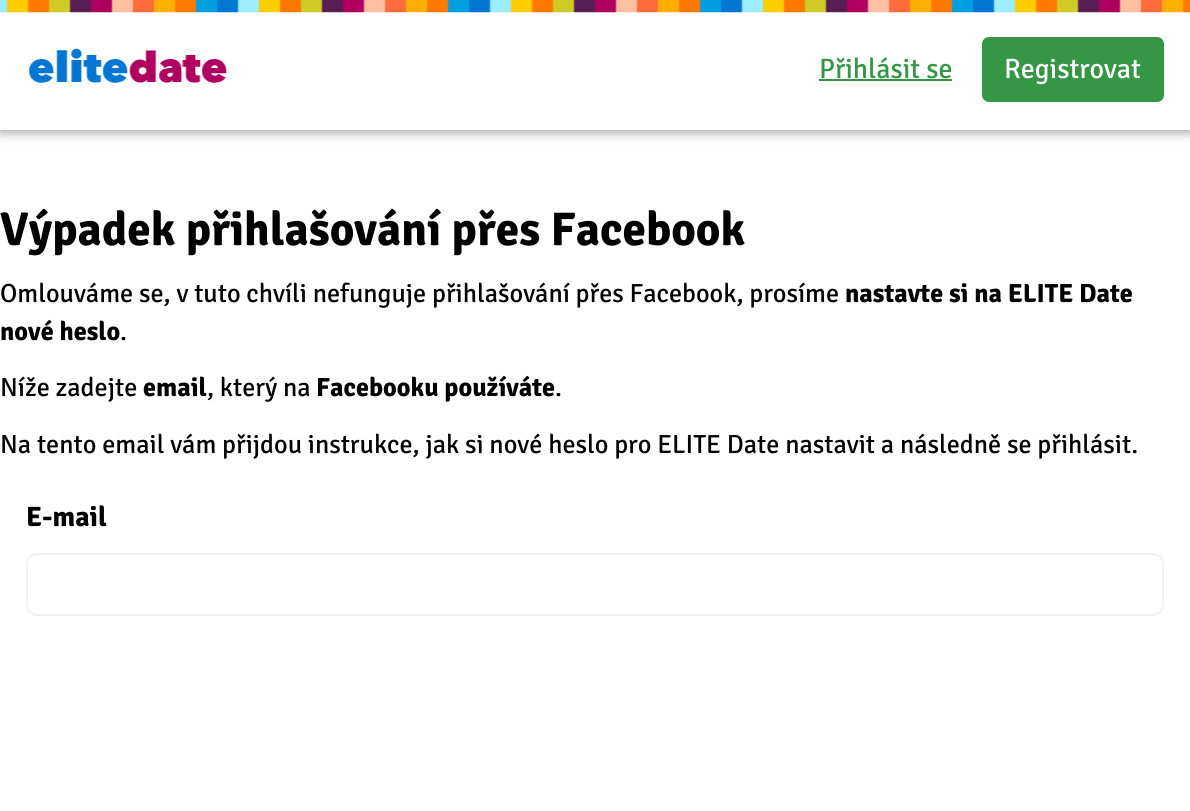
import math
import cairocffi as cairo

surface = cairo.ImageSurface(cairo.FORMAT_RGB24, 1190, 811)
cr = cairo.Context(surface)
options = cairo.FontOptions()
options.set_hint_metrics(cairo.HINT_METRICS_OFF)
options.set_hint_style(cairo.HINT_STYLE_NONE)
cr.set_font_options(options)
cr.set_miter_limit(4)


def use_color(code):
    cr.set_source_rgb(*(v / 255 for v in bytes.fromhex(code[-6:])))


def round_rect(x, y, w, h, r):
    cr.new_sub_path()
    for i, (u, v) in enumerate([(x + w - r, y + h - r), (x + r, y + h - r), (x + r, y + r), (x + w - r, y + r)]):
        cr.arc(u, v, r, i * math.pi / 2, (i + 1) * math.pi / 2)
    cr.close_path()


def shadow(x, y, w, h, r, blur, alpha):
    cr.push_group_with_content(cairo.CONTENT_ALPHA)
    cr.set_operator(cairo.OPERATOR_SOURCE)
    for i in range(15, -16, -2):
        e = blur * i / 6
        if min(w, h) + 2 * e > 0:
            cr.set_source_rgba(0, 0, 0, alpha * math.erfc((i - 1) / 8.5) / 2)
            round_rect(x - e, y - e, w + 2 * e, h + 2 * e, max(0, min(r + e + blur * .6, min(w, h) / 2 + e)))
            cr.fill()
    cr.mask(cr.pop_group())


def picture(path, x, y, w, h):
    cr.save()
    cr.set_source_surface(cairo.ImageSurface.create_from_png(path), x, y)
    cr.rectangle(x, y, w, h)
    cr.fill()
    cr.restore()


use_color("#ffffff")
cr.paint()
use_color("#000000")
shadow(0, 0, 1190, 130, 0, 7, 0.5)
use_color("#ffffff")
cr.rectangle(0, 12, 1190, 118)
cr.fill()
picture("img1.png", 0, 0, 1190, 13)
picture("img2.png", 29, 48, 198, 35)
cr.select_font_face("Signika")
cr.set_font_size(28)
use_color("#359646")
cr.move_to(819, 78)
cr.show_text("Přihlásit se")
cr.rectangle(819, 79, 133, 2)
cr.fill()
round_rect(983, 38, 180, 63, 6)
cr.fill_preserve()
cr.stroke()
use_color("#ffffff")
cr.move_to(1004, 78)
cr.show_text("Registrovat")
cr.select_font_face("Signika", cairo.FONT_SLANT_NORMAL, cairo.FONT_WEIGHT_BOLD)
cr.set_font_size(47.25)
use_color("#000000")
cr.move_to(0, 245)
cr.show_text("Výpadek přihlašování přes Facebook")
cr.select_font_face("Signika")
cr.set_font_size(26.25)
cr.move_to(0, 302)
cr.show_text("Omlouváme se, v tuto chvíli nefunguje přihlašování přes Facebook, prosíme")
cr.select_font_face("Signika", cairo.FONT_SLANT_NORMAL, cairo.FONT_WEIGHT_BOLD)
cr.move_to(845, 302)
cr.show_text("nastavte si na ELITE Date")
cr.move_to(0, 340)
cr.show_text("nové heslo")
cr.select_font_face("Signika")
cr.move_to(120, 340)
cr.show_text(".")
cr.move_to(0, 396)
cr.show_text("Níže zadejte")
cr.select_font_face("Signika", cairo.FONT_SLANT_NORMAL, cairo.FONT_WEIGHT_BOLD)
cr.move_to(143, 396)
cr.show_text("email")
cr.select_font_face("Signika")
cr.move_to(207, 396)
cr.show_text(", který na")
cr.select_font_face("Signika", cairo.FONT_SLANT_NORMAL, cairo.FONT_WEIGHT_BOLD)
cr.move_to(316, 396)
cr.show_text("Facebooku používáte")
cr.select_font_face("Signika")
cr.move_to(555, 396)
cr.show_text(".")
cr.move_to(0, 453)
cr.show_text("Na tento email vám přijdou instrukce, jak si nové heslo pro ELITE Date nastavit a následně se přihlásit.")
cr.select_font_face("Signika", cairo.FONT_SLANT_NORMAL, cairo.FONT_WEIGHT_BOLD)
cr.set_font_size(28)
cr.move_to(26, 526)
cr.show_text("E-mail")
round_rect(27, 554, 1136, 61, 10)
use_color("#f1f1f1")
cr.stroke()
surface.write_to_png("result.png")
